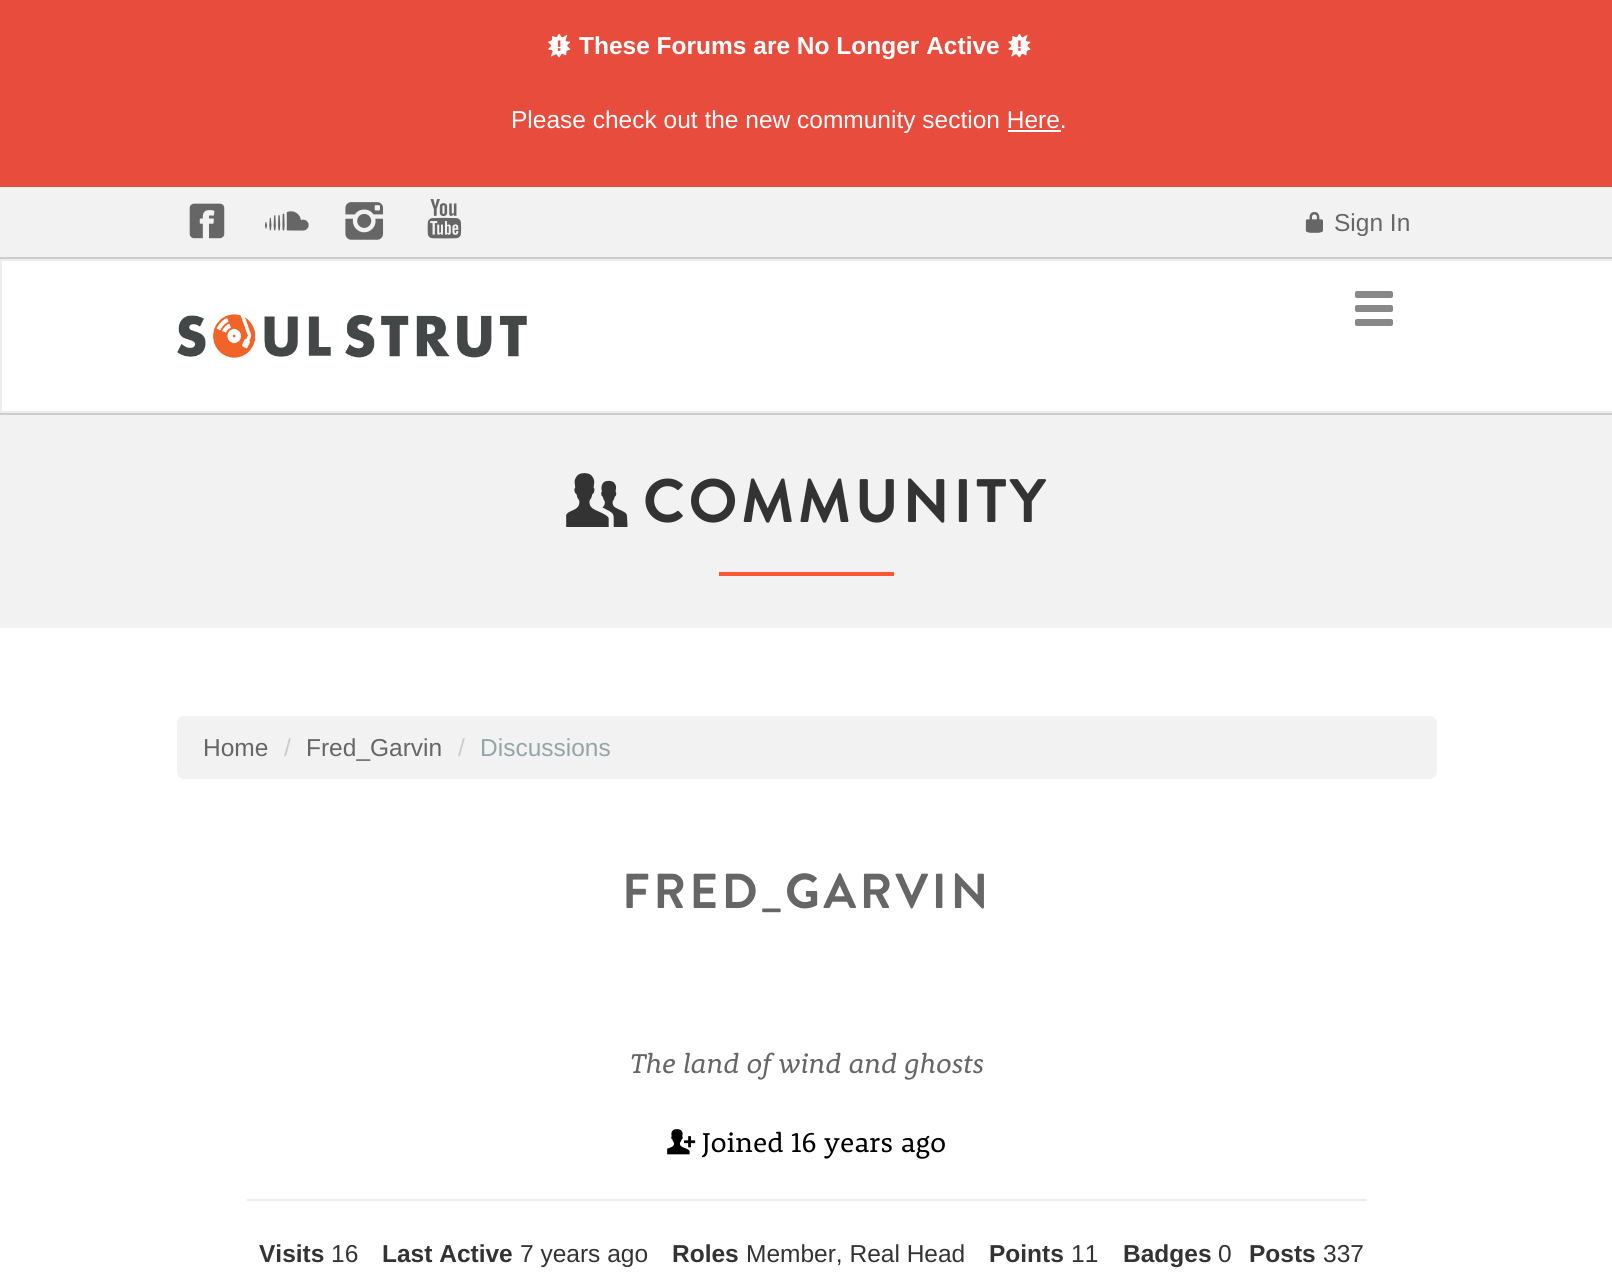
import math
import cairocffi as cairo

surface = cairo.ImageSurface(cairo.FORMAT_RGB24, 1612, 1278)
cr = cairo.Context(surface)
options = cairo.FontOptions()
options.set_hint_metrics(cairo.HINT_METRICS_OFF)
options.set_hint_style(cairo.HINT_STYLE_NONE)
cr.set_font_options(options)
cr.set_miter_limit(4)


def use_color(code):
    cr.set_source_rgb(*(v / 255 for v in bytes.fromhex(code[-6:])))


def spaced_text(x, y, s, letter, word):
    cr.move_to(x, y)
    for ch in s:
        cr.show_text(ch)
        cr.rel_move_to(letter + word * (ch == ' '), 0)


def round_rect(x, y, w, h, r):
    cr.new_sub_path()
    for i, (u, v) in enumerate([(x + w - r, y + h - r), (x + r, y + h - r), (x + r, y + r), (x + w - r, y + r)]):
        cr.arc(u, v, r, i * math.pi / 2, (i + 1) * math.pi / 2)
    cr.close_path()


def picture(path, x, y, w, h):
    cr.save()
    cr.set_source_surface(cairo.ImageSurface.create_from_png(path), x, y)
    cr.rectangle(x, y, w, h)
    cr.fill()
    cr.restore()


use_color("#ffffff")
cr.paint()
use_color("#e74c3c")
cr.rectangle(0, 0, 1612, 187)
cr.fill()
picture("img1.png", 548, 33, 23, 25)
cr.select_font_face("Liberation Sans", cairo.FONT_SLANT_NORMAL, cairo.FONT_WEIGHT_BOLD)
cr.set_font_size(24.5)
use_color("#ffffff")
cr.move_to(579, 54)
cr.show_text("These Forums are No Longer Active")
picture("img2.png", 1008, 33, 23, 25)
cr.select_font_face("Liberation Sans")
cr.move_to(511, 128)
cr.show_text("Please check out the new community section Here.")
cr.rectangle(1008, 130, 53, 2)
cr.fill()
use_color("#f2f2f2")
cr.rectangle(0, 187, 1612, 70)
cr.fill()
use_color("#cccccc")
cr.rectangle(0, 257, 1612, 2)
cr.fill()
picture("img3.png", 189, 203, 36, 36)
picture("img4.png", 264, 211, 45, 20)
picture("img5.png", 345, 202, 39, 38)
picture("img6.png", 427, 199, 35, 40)
picture("img7.png", 1305, 212, 18, 21)
use_color("#666666")
cr.move_to(1334, 231)
cr.show_text("Sign In")
cr.rectangle(1, 260, 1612, 152)
use_color("#eeeeee")
cr.stroke()
use_color("#888888")
round_rect(1355, 291, 38, 7, 2)
cr.fill()
round_rect(1355, 305, 38, 7, 2)
cr.fill()
round_rect(1355, 319, 38, 7, 2)
cr.fill()
picture("img8.png", 177, 314, 350, 44)
use_color("#f2f2f2")
cr.rectangle(0, 415, 1612, 213)
cr.fill()
use_color("#cccccc")
cr.rectangle(0, 413, 1612, 2)
cr.fill()
picture("img9.png", 566, 473, 62, 54)
cr.select_font_face("Brandon Grotesque", cairo.FONT_SLANT_NORMAL, cairo.FONT_WEIGHT_BOLD)
cr.set_font_size(61.25)
use_color("#333333")
spaced_text(643, 522, "COMMUNITY", 3.5, 0)
use_color("#ff5733")
cr.rectangle(719, 572, 175, 4)
cr.fill()
use_color("#f2f2f2")
round_rect(177, 716, 1260, 63, 7)
cr.fill()
cr.select_font_face("Liberation Sans")
cr.set_font_size(24.5)
use_color("#666666")
cr.move_to(203, 756)
cr.show_text("Home")
use_color("#cccccc")
cr.move_to(284, 756)
cr.show_text("/")
use_color("#666666")
cr.move_to(306, 756)
cr.show_text("Fred_Garvin")
use_color("#cccccc")
cr.move_to(458, 756)
cr.show_text("/")
use_color("#95a5a6")
cr.move_to(480, 756)
cr.show_text("Discussions")
cr.select_font_face("Brandon Grotesque", cairo.FONT_SLANT_NORMAL, cairo.FONT_WEIGHT_BOLD)
cr.set_font_size(49)
use_color("#666666")
spaced_text(622, 908, "FRED_GARVIN", 3.5, 0)
cr.select_font_face("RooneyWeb", cairo.FONT_SLANT_ITALIC)
cr.set_font_size(28)
cr.move_to(630, 1073)
cr.show_text("The land of wind and ghosts")
picture("img10.png", 667, 1129, 29, 26)
cr.select_font_face("RooneyWeb")
use_color("#000000")
cr.move_to(702, 1152)
cr.show_text("Joined 16 years ago")
use_color("#eeeeee")
cr.rectangle(247, 1199, 1120, 2)
cr.fill()
cr.select_font_face("Liberation Sans", cairo.FONT_SLANT_NORMAL, cairo.FONT_WEIGHT_BOLD)
cr.set_font_size(24.5)
use_color("#333333")
cr.move_to(259, 1262)
cr.show_text("Visits")
cr.select_font_face("Liberation Sans")
cr.move_to(331, 1262)
cr.show_text("16")
cr.select_font_face("Liberation Sans", cairo.FONT_SLANT_NORMAL, cairo.FONT_WEIGHT_BOLD)
cr.move_to(382, 1262)
cr.show_text("Last Active")
cr.select_font_face("Liberation Sans")
cr.move_to(520, 1262)
cr.show_text("7 years ago")
cr.select_font_face("Liberation Sans", cairo.FONT_SLANT_NORMAL, cairo.FONT_WEIGHT_BOLD)
cr.move_to(672, 1262)
cr.show_text("Roles")
cr.select_font_face("Liberation Sans")
cr.move_to(746, 1262)
cr.show_text("Member, Real Head")
cr.select_font_face("Liberation Sans", cairo.FONT_SLANT_NORMAL, cairo.FONT_WEIGHT_BOLD)
cr.move_to(989, 1262)
cr.show_text("Points")
cr.select_font_face("Liberation Sans")
cr.move_to(1071, 1262)
cr.show_text("11")
cr.select_font_face("Liberation Sans", cairo.FONT_SLANT_NORMAL, cairo.FONT_WEIGHT_BOLD)
cr.move_to(1123, 1262)
cr.show_text("Badges")
cr.select_font_face("Liberation Sans")
cr.move_to(1218, 1262)
cr.show_text("0")
cr.select_font_face("Liberation Sans", cairo.FONT_SLANT_NORMAL, cairo.FONT_WEIGHT_BOLD)
cr.move_to(1249, 1262)
cr.show_text("Posts")
cr.select_font_face("Liberation Sans")
cr.move_to(1323, 1262)
cr.show_text("337")
surface.write_to_png("result.png")
